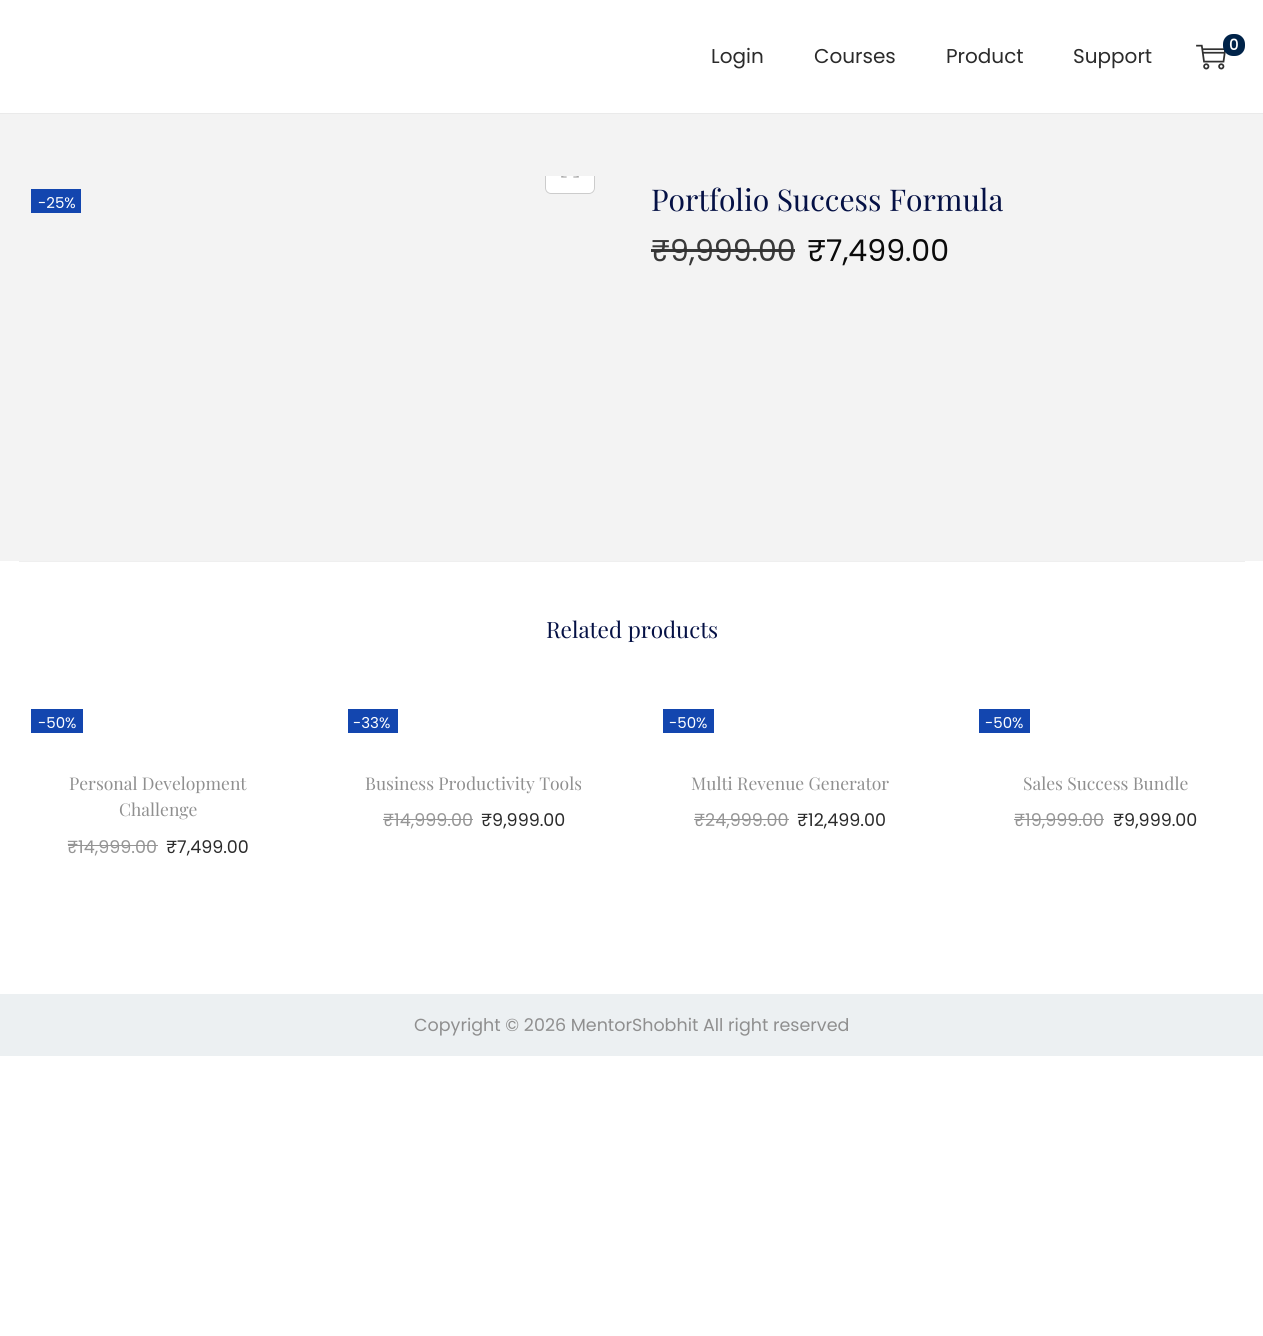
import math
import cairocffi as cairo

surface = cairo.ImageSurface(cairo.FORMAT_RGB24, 1263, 1336)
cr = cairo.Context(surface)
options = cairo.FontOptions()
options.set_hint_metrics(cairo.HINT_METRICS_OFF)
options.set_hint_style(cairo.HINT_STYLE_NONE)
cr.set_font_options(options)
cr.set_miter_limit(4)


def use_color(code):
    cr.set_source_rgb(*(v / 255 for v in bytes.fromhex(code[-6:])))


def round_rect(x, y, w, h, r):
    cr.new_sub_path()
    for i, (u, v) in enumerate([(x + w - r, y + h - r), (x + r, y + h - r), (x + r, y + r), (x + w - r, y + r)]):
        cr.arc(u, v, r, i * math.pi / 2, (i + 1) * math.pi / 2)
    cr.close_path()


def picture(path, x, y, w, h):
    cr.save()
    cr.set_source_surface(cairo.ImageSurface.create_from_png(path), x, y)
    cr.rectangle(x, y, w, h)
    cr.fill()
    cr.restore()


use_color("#ffffff")
cr.paint()
use_color("#eaeaea")
cr.rectangle(0, 113, 1263, 1)
cr.fill()
picture("img1.png", 1196, 44, 30, 26)
use_color("#002349")
round_rect(1223, 34, 22, 22, 10)
cr.fill()
cr.select_font_face("Poppins", cairo.FONT_SLANT_NORMAL, cairo.FONT_WEIGHT_BOLD)
cr.set_font_size(15)
use_color("#ffffff")
cr.move_to(1229, 50)
cr.show_text("0")
cr.select_font_face("Poppins")
cr.set_font_size(20)
use_color("#2b2b2b")
cr.move_to(711, 63)
cr.show_text("Login")
cr.move_to(814, 63)
cr.show_text("Courses")
cr.move_to(946, 63)
cr.show_text("Product")
cr.move_to(1073, 63)
cr.show_text("Support")
use_color("#f3f3f3")
cr.rectangle(0, 114, 1263, 447)
cr.fill()
use_color("#ffffff")
cr.new_path()
cr.move_to(545, 176)
cr.line_to(595, 176)
cr.line_to(595, 188)
cr.curve_to(595, 191.5, 592.5, 194, 589, 194)
cr.line_to(551, 194)
cr.curve_to(547.5, 194, 545, 191.5, 545, 188)
cr.close_path()
cr.fill()
cr.save()
cr.rectangle(19, 176, 595, 37)
cr.clip()
round_rect(545.5, 144.5, 49, 49, 5.5)
use_color("#cccccc")
cr.set_line_width(1)
cr.stroke()
cr.restore()
picture("img2.png", 561, 176, 18, 2)
use_color("#1346af")
cr.rectangle(31, 189, 50, 24)
cr.fill()
cr.set_font_size(15)
use_color("#ffffff")
cr.move_to(38, 208)
cr.show_text("-25%")
cr.select_font_face("Playfair Display")
cr.set_font_size(30)
use_color("#051145")
cr.move_to(651, 211)
cr.show_text("Portfolio Success Formula")
cr.select_font_face("Poppins")
use_color("#393939")
cr.move_to(651, 261)
cr.show_text("₹9,999.00")
cr.set_source_rgba(0.192, 0.192, 0.192, 0.96)
cr.rectangle(651, 249, 19, 3)
cr.fill()
cr.rectangle(670, 249, 125, 3)
cr.fill()
use_color("#0a0a0a")
cr.move_to(807, 261)
cr.show_text("₹7,499.00")
use_color("#efefef")
cr.rectangle(19, 561, 1226, 1)
cr.fill()
cr.select_font_face("Playfair Display")
cr.set_font_size(22.5)
use_color("#051145")
cr.move_to(546, 638)
cr.show_text("Related products")
use_color("#1346af")
cr.rectangle(31, 709, 52, 24)
cr.fill()
cr.select_font_face("Poppins")
cr.set_font_size(15)
use_color("#ffffff")
cr.move_to(38, 728)
cr.show_text("-50%")
cr.select_font_face("Playfair Display")
cr.set_font_size(17.5)
use_color("#8f8f8f")
cr.move_to(69, 790)
cr.show_text("Personal Development")
cr.move_to(119, 816)
cr.show_text("Challenge")
cr.select_font_face("Poppins")
use_color("#959595")
cr.move_to(67, 853)
cr.show_text("₹14,999.00")
cr.rectangle(68, 845, 90, 1)
cr.fill()
use_color("#2b2b2b")
cr.move_to(166, 853)
cr.show_text("₹7,499.00")
use_color("#1346af")
cr.rectangle(348, 709, 50, 24)
cr.fill()
cr.set_font_size(15)
use_color("#ffffff")
cr.move_to(353, 728)
cr.show_text("-33%")
cr.select_font_face("Playfair Display")
cr.set_font_size(17.5)
use_color("#8f8f8f")
cr.move_to(365, 790)
cr.show_text("Business Productivity Tools")
cr.select_font_face("Poppins")
use_color("#959595")
cr.move_to(383, 826)
cr.show_text("₹14,999.00")
cr.rectangle(383, 819, 90, 1)
cr.fill()
use_color("#2b2b2b")
cr.move_to(481, 826)
cr.show_text("₹9,999.00")
use_color("#1346af")
cr.rectangle(663, 709, 51, 24)
cr.fill()
cr.set_font_size(15)
use_color("#ffffff")
cr.move_to(669, 728)
cr.show_text("-50%")
cr.select_font_face("Playfair Display")
cr.set_font_size(17.5)
use_color("#8f8f8f")
cr.move_to(691, 790)
cr.show_text("Multi Revenue Generator")
cr.select_font_face("Poppins")
use_color("#959595")
cr.move_to(694, 826)
cr.show_text("₹24,999.00")
cr.rectangle(694, 819, 95, 1)
cr.fill()
use_color("#2b2b2b")
cr.move_to(797, 826)
cr.show_text("₹12,499.00")
use_color("#1346af")
cr.rectangle(979, 709, 51, 24)
cr.fill()
cr.set_font_size(15)
use_color("#ffffff")
cr.move_to(985, 728)
cr.show_text("-50%")
cr.select_font_face("Playfair Display")
cr.set_font_size(17.5)
use_color("#8f8f8f")
cr.move_to(1023, 790)
cr.show_text("Sales Success Bundle")
cr.select_font_face("Poppins")
use_color("#959595")
cr.move_to(1014, 826)
cr.show_text("₹19,999.00")
cr.rectangle(1014, 819, 90, 1)
cr.fill()
use_color("#2b2b2b")
cr.move_to(1113, 826)
cr.show_text("₹9,999.00")
use_color("#ecf0f2")
cr.rectangle(0, 994, 1263, 62)
cr.fill()
use_color("#8f8f8f")
cr.move_to(414, 1031)
cr.show_text("Copyright © 2026 MentorShobhit All right reserved")
surface.write_to_png("result.png")
